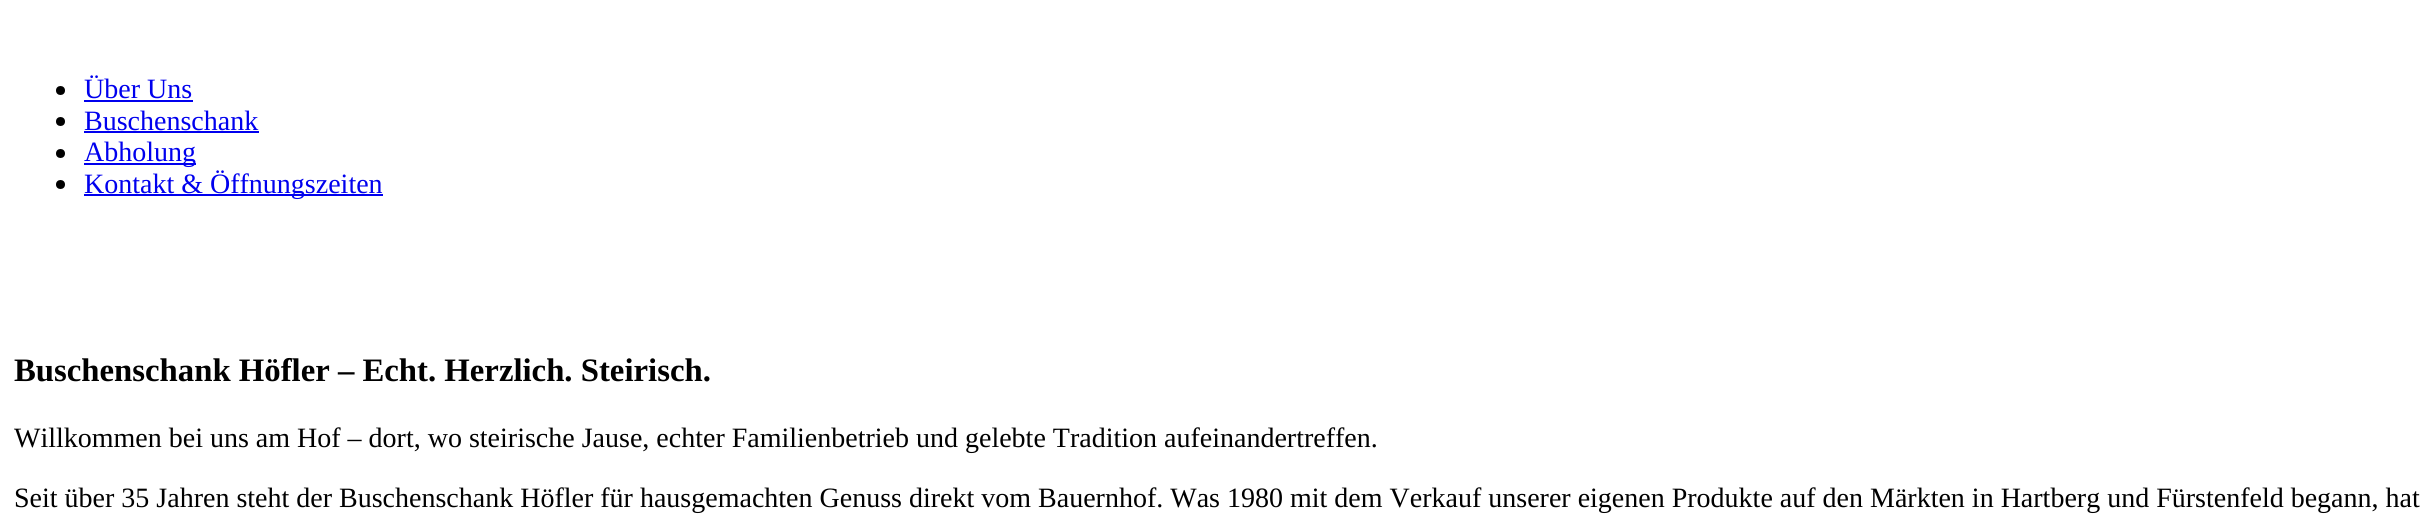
import math
import cairocffi as cairo

surface = cairo.ImageSurface(cairo.FORMAT_RGB24, 2434, 528)
cr = cairo.Context(surface)
options = cairo.FontOptions()
options.set_hint_metrics(cairo.HINT_METRICS_OFF)
options.set_hint_style(cairo.HINT_STYLE_NONE)
cr.set_font_options(options)
cr.set_miter_limit(4)


def use_color(code):
    cr.set_source_rgb(*(v / 255 for v in bytes.fromhex(code[-6:])))


use_color("#ffffff")
cr.paint()
use_color("#000000")
cr.arc(60.5, 90.5, 4.5, 0, 2 * math.pi)
cr.fill()
cr.select_font_face("Liberation Serif")
cr.set_font_size(28)
use_color("#0000ee")
cr.move_to(84, 98)
cr.show_text("Über Uns")
cr.rectangle(84, 100, 109, 2)
cr.fill()
use_color("#000000")
cr.arc(60.5, 121.5, 4.5, 0, 2 * math.pi)
cr.fill()
use_color("#0000ee")
cr.move_to(84, 130)
cr.show_text("Buschenschank")
cr.rectangle(84, 131, 175, 2)
cr.fill()
use_color("#000000")
cr.arc(60.5, 153.5, 4.5, 0, 2 * math.pi)
cr.fill()
use_color("#0000ee")
cr.rectangle(84, 163, 112, 2)
cr.fill()
cr.move_to(84, 161)
cr.show_text("Abholung")
use_color("#000000")
cr.new_path()
cr.arc(60.5, 184.5, 4.5, 0, 2 * math.pi)
cr.fill()
use_color("#0000ee")
cr.rectangle(84, 194, 299, 2)
cr.fill()
cr.move_to(84, 193)
cr.show_text("Kontakt & Öffnungszeiten")
cr.select_font_face("Liberation Serif", cairo.FONT_SLANT_NORMAL, cairo.FONT_WEIGHT_BOLD)
cr.set_font_size(32.75)
use_color("#000000")
cr.move_to(14, 381)
cr.show_text("Buschenschank Höfler – Echt. Herzlich. Steirisch.")
cr.select_font_face("Liberation Serif")
cr.set_font_size(28)
cr.move_to(14, 447)
cr.show_text("Willkommen bei uns am Hof – dort, wo steirische Jause, echter Familienbetrieb und gelebte Tradition aufeinandertreffen.")
cr.move_to(14, 507)
cr.show_text("Seit über 35 Jahren steht der Buschenschank Höfler für hausgemachten Genuss direkt vom Bauernhof. Was 1980 mit dem Verkauf unserer eigenen Produkte auf den Märkten in Hartberg und Fürstenfeld begann, hat")
surface.write_to_png("result.png")
